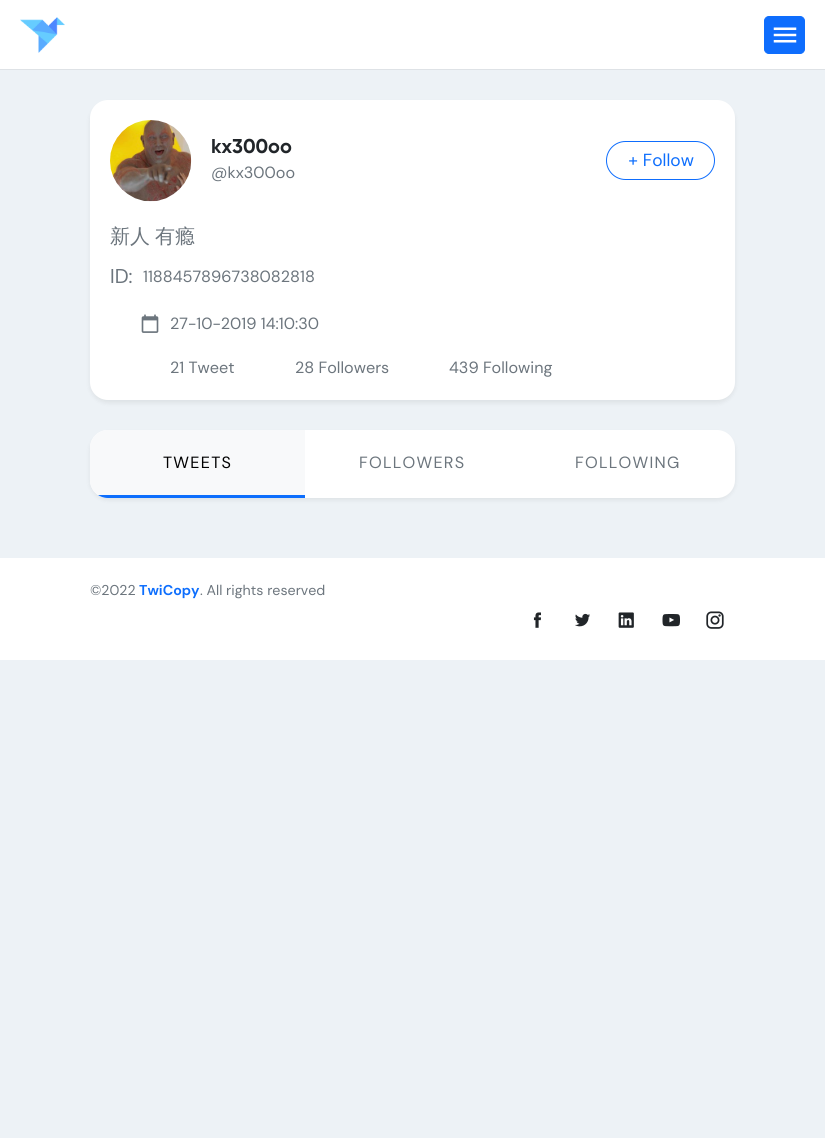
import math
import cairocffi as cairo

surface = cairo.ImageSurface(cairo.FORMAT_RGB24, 825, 1138)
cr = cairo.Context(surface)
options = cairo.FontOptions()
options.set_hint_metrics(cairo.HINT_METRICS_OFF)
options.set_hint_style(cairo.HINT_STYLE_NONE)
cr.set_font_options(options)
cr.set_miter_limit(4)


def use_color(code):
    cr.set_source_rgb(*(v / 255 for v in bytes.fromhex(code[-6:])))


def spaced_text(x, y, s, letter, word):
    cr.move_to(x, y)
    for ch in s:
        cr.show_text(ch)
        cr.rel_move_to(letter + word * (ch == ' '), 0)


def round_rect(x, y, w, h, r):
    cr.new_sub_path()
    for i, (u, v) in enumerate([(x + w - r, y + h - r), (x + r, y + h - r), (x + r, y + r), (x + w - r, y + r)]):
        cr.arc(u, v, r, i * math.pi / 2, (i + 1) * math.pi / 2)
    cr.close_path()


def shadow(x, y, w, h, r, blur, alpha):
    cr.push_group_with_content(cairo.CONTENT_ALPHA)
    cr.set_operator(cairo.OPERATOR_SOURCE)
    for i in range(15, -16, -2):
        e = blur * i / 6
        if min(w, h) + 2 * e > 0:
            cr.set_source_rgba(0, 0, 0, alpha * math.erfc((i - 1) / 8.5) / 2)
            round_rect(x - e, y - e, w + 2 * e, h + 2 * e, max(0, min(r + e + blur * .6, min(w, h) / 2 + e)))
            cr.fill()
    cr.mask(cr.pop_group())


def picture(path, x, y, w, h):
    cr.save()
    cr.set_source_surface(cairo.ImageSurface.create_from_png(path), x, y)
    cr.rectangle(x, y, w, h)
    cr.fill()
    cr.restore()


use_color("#edf2f6")
cr.paint()
use_color("#ffffff")
cr.rectangle(0, 0, 825, 69)
cr.fill()
use_color("#dee2e6")
cr.rectangle(0, 69, 825, 1)
cr.fill()
picture("img1.png", 20, 17, 45, 36)
use_color("#0e6dfd")
round_rect(764.5, 16.5, 40, 37, 4.5)
cr.fill_preserve()
cr.set_line_width(1)
cr.stroke()
picture("img2.png", 773, 27, 24, 16)
use_color("#000000")
shadow(90, 103, 645, 300, 18, 2.5, 0.07)
use_color("#ffffff")
round_rect(90, 100, 645, 300, 18)
cr.fill()
picture("img3.png", 110, 120, 82, 82)
cr.select_font_face("Gilroy", cairo.FONT_SLANT_NORMAL, cairo.FONT_WEIGHT_BOLD)
cr.set_font_size(20)
use_color("#212529")
cr.move_to(211, 153)
cr.show_text("kx300oo")
cr.select_font_face("DM Sans")
cr.set_font_size(16.25)
use_color("#6c757d")
cr.move_to(211, 178)
cr.show_text("@kx300oo")
round_rect(606.5, 141.5, 108, 38, 19)
use_color("#0e6dfd")
cr.stroke()
cr.set_font_size(17.5)
use_color("#0d6efd")
cr.move_to(628, 166)
cr.show_text("+ Follow")
cr.select_font_face("WenQuanYi Zen Hei Medium")
cr.set_font_size(20)
use_color("#6c757d")
spaced_text(110, 243, "新人 有瘾", 0, -1)
cr.select_font_face("DM Sans")
cr.move_to(110, 283)
cr.show_text("ID:")
cr.set_font_size(16.25)
cr.move_to(143, 282)
cr.show_text("1188457896738082818")
picture("img4.png", 141, 314, 18, 19)
cr.move_to(170, 329)
cr.show_text("27-10-2019 14:10:30")
cr.move_to(170, 373)
cr.show_text("21 Tweet")
cr.move_to(295, 373)
cr.show_text("28 Followers")
cr.move_to(449, 373)
cr.show_text("439 Following")
use_color("#000000")
shadow(90, 433, 645, 67, 18, 2.5, 0.07)
use_color("#ffffff")
round_rect(90, 430, 645, 68, 18)
cr.fill()
use_color("#f8f9fa")
cr.new_path()
cr.move_to(108, 430)
cr.line_to(305, 430)
cr.line_to(305, 498)
cr.line_to(108, 498)
cr.curve_to(98, 498, 90, 490, 90, 480)
cr.line_to(90, 448)
cr.curve_to(90, 438, 98, 430, 108, 430)
cr.close_path()
cr.fill()
cr.save()
round_rect(90, 430, 645, 68, 18)
cr.clip()
use_color("#0d6efd")
cr.rectangle(90, 495, 215, 3)
cr.fill()
cr.restore()
use_color("#000000")
spaced_text(163, 468, "TWEETS", 1.25, 0)
use_color("#6c757d")
spaced_text(359, 468, "FOLLOWERS", 1.25, 0)
spaced_text(575, 468, "FOLLOWING", 1.25, 0)
use_color("#ffffff")
cr.rectangle(0, 558, 825, 102)
cr.fill()
cr.set_font_size(14.25)
use_color("#6c757d")
cr.move_to(90, 595)
cr.show_text("©2022")
cr.select_font_face("DM Sans", cairo.FONT_SLANT_NORMAL, cairo.FONT_WEIGHT_BOLD)
use_color("#0d6efd")
cr.move_to(139, 595)
cr.show_text("TwiCopy")
cr.select_font_face("DM Sans")
use_color("#6c757d")
cr.move_to(200, 595)
cr.show_text(". All rights reserved")
picture("img5.png", 533, 612, 8, 16)
picture("img6.png", 575, 613, 15, 14)
picture("img7.png", 618, 612, 16, 16)
picture("img8.png", 662, 614, 18, 13)
picture("img9.png", 706, 611, 18, 18)
surface.write_to_png("result.png")
